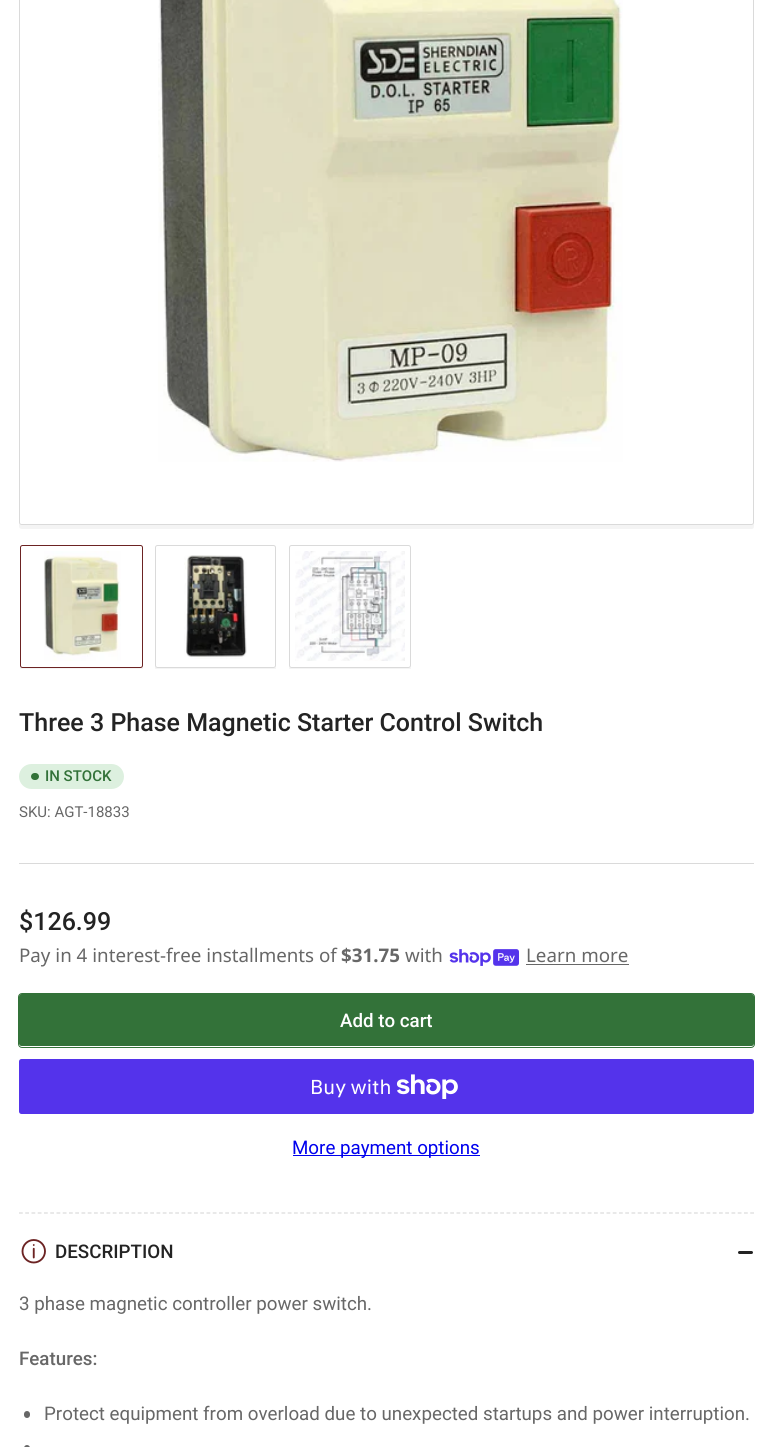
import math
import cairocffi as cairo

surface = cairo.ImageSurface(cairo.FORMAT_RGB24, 772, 1447)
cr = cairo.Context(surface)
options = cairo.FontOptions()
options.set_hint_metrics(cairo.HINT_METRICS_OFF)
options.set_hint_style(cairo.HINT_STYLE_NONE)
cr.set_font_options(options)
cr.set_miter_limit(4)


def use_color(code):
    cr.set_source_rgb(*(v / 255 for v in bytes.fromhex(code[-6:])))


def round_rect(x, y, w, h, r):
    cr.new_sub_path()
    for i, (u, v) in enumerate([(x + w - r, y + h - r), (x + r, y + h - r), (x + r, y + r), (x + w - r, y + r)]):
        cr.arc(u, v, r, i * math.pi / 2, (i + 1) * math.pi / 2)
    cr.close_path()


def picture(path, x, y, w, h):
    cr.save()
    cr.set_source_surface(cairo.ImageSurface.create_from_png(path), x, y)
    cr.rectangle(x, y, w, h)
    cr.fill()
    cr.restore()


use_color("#ffffff")
cr.paint()
use_color("#f4f4f4")
cr.new_path()
cr.move_to(19, 524)
cr.line_to(19, 526)
cr.curve_to(19, 528, 20, 529, 22, 529)
cr.line_to(752, 529)
cr.curve_to(753, 529, 754, 528, 754, 526)
cr.line_to(754, -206)
cr.line_to(754, 522)
cr.curve_to(754, 524, 753, 525, 751, 525)
cr.line_to(21, 525)
cr.curve_to(20, 525, 19, 524, 19, 524)
cr.close_path()
cr.fill()
round_rect(19.5, -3.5, 734, 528, 2)
use_color("#dadada")
cr.set_line_width(1)
cr.stroke()
picture("img1.png", 158, 0, 465, 462)
cr.save()
cr.rectangle(19, 544, 735, 125)
cr.clip()
use_color("#f4f4f4")
cr.new_path()
cr.move_to(20, 665)
cr.line_to(20, 668)
cr.curve_to(20, 670, 21, 671, 22, 671)
cr.line_to(140, 671)
cr.curve_to(142, 671, 143, 670, 143, 668)
cr.line_to(143, 552)
cr.line_to(142, 550)
cr.line_to(142, 665)
cr.curve_to(142, 666, 141, 668, 140, 668)
cr.line_to(22, 668)
cr.curve_to(21, 668, 20, 666, 20, 665)
cr.close_path()
cr.fill()
cr.restore()
use_color("#ffffff")
round_rect(20.5, 545.5, 122, 122, 2)
cr.fill_preserve()
use_color("#6c2323")
cr.stroke()
picture("img2.png", 44, 551, 77, 110)
cr.save()
cr.rectangle(19, 544, 735, 125)
cr.clip()
use_color("#f4f4f4")
cr.new_path()
cr.move_to(155, 665)
cr.line_to(155, 668)
cr.curve_to(155, 670, 156, 671, 158, 671)
cr.line_to(274, 671)
cr.curve_to(275, 671, 276, 670, 276, 668)
cr.line_to(276, 666)
cr.curve_to(276, 667, 275, 668, 274, 668)
cr.line_to(158, 668)
cr.curve_to(156, 668, 155, 666, 155, 665)
cr.close_path()
cr.fill()
cr.restore()
use_color("#ffffff")
round_rect(155.5, 545.5, 120, 122, 2)
cr.fill_preserve()
use_color("#dadada")
cr.stroke()
picture("img3.png", 184, 555, 63, 104)
cr.save()
cr.rectangle(19, 544, 735, 125)
cr.clip()
use_color("#f4f4f4")
cr.new_path()
cr.move_to(289, 666)
cr.line_to(289, 668)
cr.curve_to(289, 670, 290, 671, 292, 671)
cr.line_to(408, 671)
cr.curve_to(410, 671, 411, 670, 411, 668)
cr.line_to(411, 666)
cr.curve_to(411, 667, 410, 668, 409, 668)
cr.line_to(291, 668)
cr.curve_to(290, 668, 289, 667, 289, 666)
cr.close_path()
cr.fill()
cr.restore()
round_rect(289.5, 545.5, 121, 122, 2)
cr.stroke()
picture("img4.png", 295, 551, 110, 110)
cr.rectangle(19, 863, 735, 1)
cr.fill()
cr.select_font_face("Roboto Medium")
cr.set_font_size(25)
use_color("#232323")
cr.move_to(19, 731)
cr.show_text("Three 3 Phase Magnetic Starter Control Switch")
use_color("#ddf0df")
round_rect(19, 764, 105, 25, 12.5)
cr.fill()
use_color("#337239")
round_rect(31, 773, 8, 7, 3.5)
cr.fill()
cr.set_font_size(15)
cr.move_to(45, 781)
cr.show_text("IN STOCK")
cr.select_font_face("Roboto")
use_color("#676767")
cr.move_to(19, 817)
cr.show_text("SKU: AGT-18833")
cr.select_font_face("Roboto Medium")
cr.set_font_size(25)
use_color("#232323")
cr.move_to(19, 930)
cr.show_text("$126.99")
cr.select_font_face("Noto Sans")
cr.set_font_size(18.75)
use_color("#676767")
cr.move_to(19, 962)
cr.show_text("Pay in 4 interest-free installments of")
cr.select_font_face("Noto Sans", cairo.FONT_SLANT_NORMAL, cairo.FONT_WEIGHT_BOLD)
cr.move_to(341, 962)
cr.show_text("$31.75")
cr.select_font_face("Noto Sans")
cr.move_to(405, 962)
cr.show_text("with")
picture("img5.png", 449, 949, 70, 17)
cr.move_to(526, 962)
cr.show_text("Learn more")
cr.rectangle(526, 964, 103, 1)
cr.fill()
round_rect(18.5, 993.5, 736, 54, 3.5)
use_color("#337239")
cr.stroke()
round_rect(19, 994, 735, 52, 2.5)
cr.fill()
cr.select_font_face("Roboto Medium")
use_color("#ffffff")
cr.move_to(340, 1027)
cr.show_text("Add to cart")
use_color("#5433eb")
round_rect(19, 1059, 735, 55, 2.5)
cr.fill()
cr.select_font_face("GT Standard")
cr.set_font_size(20)
use_color("#ffffff")
cr.move_to(310, 1094)
cr.show_text("Buy with")
picture("img6.png", 396, 1074, 62, 25)
use_color("#0000ee")
cr.rectangle(293, 1155, 187, 1)
cr.fill()
cr.select_font_face("Roboto")
cr.set_font_size(18.75)
cr.move_to(292, 1154)
cr.show_text("More payment options")
cr.new_path()
cr.move_to(19, 1213)
cr.line_to(754, 1213)
use_color("#dadada")
cr.set_line_width(1.2)
cr.set_dash([3.75, 2.5])
cr.stroke()
picture("img7.png", 21, 1239, 25, 25)
cr.select_font_face("Roboto Medium")
use_color("#232323")
cr.move_to(55, 1258)
cr.show_text("DESCRIPTION")
round_rect(738, 1251, 8, 3, 1.5)
cr.fill()
round_rect(743, 1251, 10, 3, 1.5)
cr.fill()
cr.select_font_face("Roboto")
use_color("#676767")
cr.move_to(19, 1310)
cr.show_text("3 phase magnetic controller power switch.")
cr.select_font_face("Roboto Medium")
cr.move_to(19, 1365)
cr.show_text("Features:")
round_rect(24, 1411, 6, 7, 3)
cr.fill()
cr.select_font_face("Roboto")
cr.move_to(44, 1420)
cr.show_text("Protect equipment from overload due to unexpected startups and power interruption.")
round_rect(24, 1445, 6, 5, 3)
cr.fill()
surface.write_to_png("result.png")
